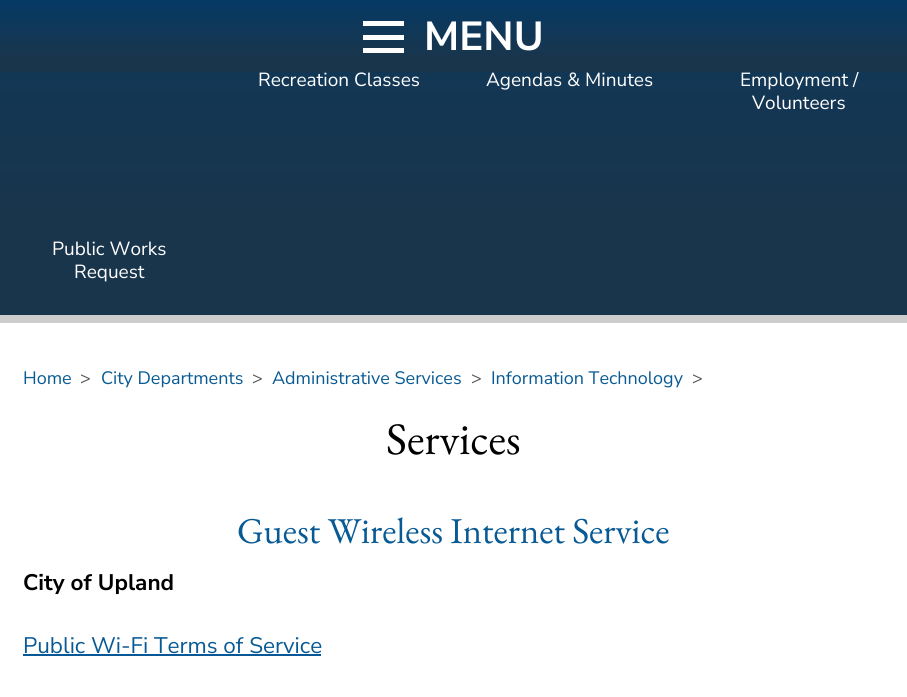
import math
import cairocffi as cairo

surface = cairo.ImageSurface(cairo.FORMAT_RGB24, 907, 697)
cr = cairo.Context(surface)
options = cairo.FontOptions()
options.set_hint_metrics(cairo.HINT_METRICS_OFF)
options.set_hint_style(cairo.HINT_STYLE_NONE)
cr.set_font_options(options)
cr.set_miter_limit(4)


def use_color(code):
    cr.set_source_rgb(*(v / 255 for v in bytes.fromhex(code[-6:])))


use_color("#ffffff")
cr.paint()
gradient = cairo.LinearGradient(454, -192, 454, 315)
gradient.add_color_stop_rgba(0, 0.02, 0.227, 0.396, 1)
gradient.add_color_stop_rgba(0.8, 0.098, 0.208, 0.298, 1)
cr.set_source(gradient)
cr.rectangle(0, 72, 907, 243)
cr.fill()
cr.select_font_face("Nunito Sans")
cr.set_font_size(19)
use_color("#ffffff")
cr.move_to(740, 86)
cr.show_text("Employment /")
gradient = cairo.LinearGradient(454, 0, 454, 72)
gradient.add_color_stop_rgba(0, 0.02, 0.227, 0.396, 1)
gradient.add_color_stop_rgba(0.8, 0.098, 0.208, 0.298, 1)
cr.set_source(gradient)
cr.rectangle(0, 0, 907, 72)
cr.fill()
use_color("#ffffff")
cr.rectangle(363, 35, 41, 5)
cr.fill()
cr.rectangle(363, 21, 41, 5)
cr.fill()
cr.rectangle(363, 48, 41, 5)
cr.fill()
cr.select_font_face("Nunito Sans", cairo.FONT_SLANT_NORMAL, cairo.FONT_WEIGHT_BOLD)
cr.set_font_size(40.5)
cr.move_to(424, 50)
cr.show_text("MENU")
use_color("#cdcdcd")
cr.rectangle(0, 315, 907, 8)
cr.fill()
cr.select_font_face("Nunito Sans")
cr.set_font_size(19)
use_color("#ffffff")
cr.move_to(258, 86)
cr.show_text("Recreation Classes")
cr.move_to(486, 86)
cr.show_text("Agendas & Minutes")
cr.move_to(752, 109)
cr.show_text("Volunteers")
cr.move_to(52, 255)
cr.show_text("Public Works")
cr.move_to(74, 278)
cr.show_text("Request")
cr.set_font_size(18)
use_color("#085a94")
cr.move_to(23, 384)
cr.show_text("Home")
use_color("#555555")
cr.move_to(80, 384)
cr.show_text(">")
use_color("#085a94")
cr.move_to(101, 384)
cr.show_text("City Departments")
use_color("#555555")
cr.move_to(252, 384)
cr.show_text(">")
use_color("#085a94")
cr.move_to(272, 384)
cr.show_text("Administrative Services")
use_color("#555555")
cr.move_to(471, 384)
cr.show_text(">")
use_color("#085a94")
cr.move_to(491, 384)
cr.show_text("Information Technology")
use_color("#555555")
cr.move_to(692, 384)
cr.show_text(">")
cr.select_font_face("EB Garamond")
cr.set_font_size(45)
use_color("#000000")
cr.move_to(386, 454)
cr.show_text("Services")
cr.set_font_size(36.5)
use_color("#085a94")
cr.move_to(237, 543)
cr.show_text("Guest Wireless Internet Service")
cr.select_font_face("Nunito Sans", cairo.FONT_SLANT_NORMAL, cairo.FONT_WEIGHT_BOLD)
cr.set_font_size(22.5)
use_color("#000000")
cr.move_to(23, 590)
cr.show_text("City of Upland")
cr.select_font_face("Nunito Sans")
use_color("#085a94")
cr.move_to(23, 653)
cr.show_text("Public Wi-Fi Terms of Service")
use_color("#085898")
cr.rectangle(23, 654, 298, 2)
cr.fill()
surface.write_to_png("result.png")
